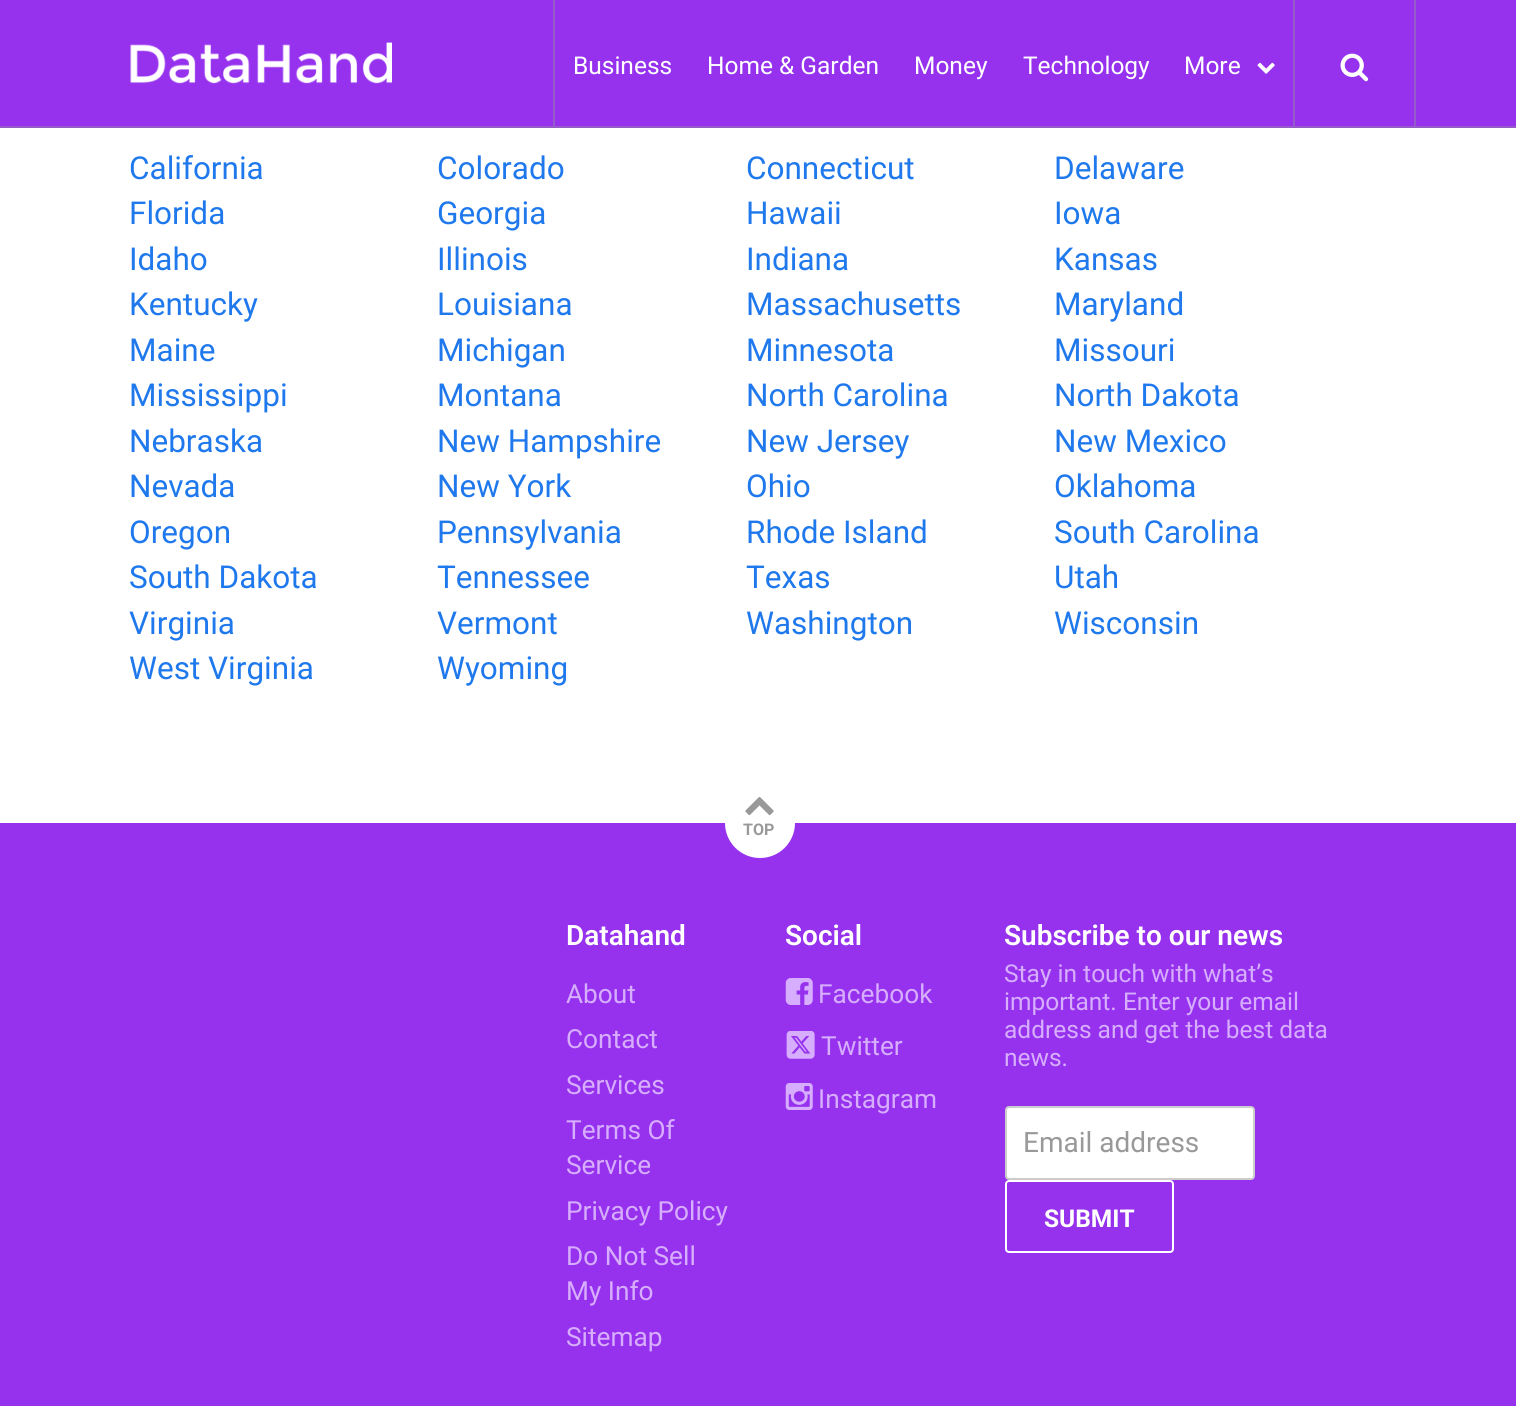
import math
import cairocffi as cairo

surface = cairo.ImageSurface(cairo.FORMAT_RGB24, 1516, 1406)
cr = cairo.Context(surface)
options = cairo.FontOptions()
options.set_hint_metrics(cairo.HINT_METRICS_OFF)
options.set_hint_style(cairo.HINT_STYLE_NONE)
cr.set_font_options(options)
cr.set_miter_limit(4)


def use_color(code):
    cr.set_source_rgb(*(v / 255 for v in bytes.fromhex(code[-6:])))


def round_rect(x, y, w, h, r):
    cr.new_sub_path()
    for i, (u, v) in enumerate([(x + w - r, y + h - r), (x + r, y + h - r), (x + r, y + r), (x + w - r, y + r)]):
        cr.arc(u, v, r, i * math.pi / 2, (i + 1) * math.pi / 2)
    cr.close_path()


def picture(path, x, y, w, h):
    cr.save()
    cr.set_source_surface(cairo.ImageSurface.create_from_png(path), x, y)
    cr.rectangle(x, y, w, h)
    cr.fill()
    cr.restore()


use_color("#ffffff")
cr.paint()
use_color("#9632ee")
cr.rectangle(0, 0, 1516, 126)
cr.fill()
picture("img1.png", 130, 42, 262, 42)
use_color("#955bc8")
cr.rectangle(0, 126, 1516, 2)
cr.fill()
cr.rectangle(1414, 0, 2, 128)
cr.fill()
cr.rectangle(553, 0, 2, 128)
cr.fill()
cr.select_font_face("Roboto")
cr.set_font_size(24.5)
use_color("#ffffff")
cr.move_to(573, 74)
cr.show_text("Business")
cr.move_to(707, 74)
cr.show_text("Home & Garden")
cr.move_to(914, 74)
cr.show_text("Money")
cr.move_to(1023, 74)
cr.show_text("Technology")
cr.move_to(1184, 74)
cr.show_text("More")
picture("img2.png", 1257, 62, 18, 12)
use_color("#955bc8")
cr.rectangle(1293, 0, 2, 128)
cr.fill()
picture("img3.png", 1340, 53, 29, 29)
cr.set_font_size(31.5)
use_color("#1f79ed")
cr.move_to(129, 179)
cr.show_text("California")
cr.move_to(437, 179)
cr.show_text("Colorado")
cr.move_to(746, 179)
cr.show_text("Connecticut")
cr.move_to(1054, 179)
cr.show_text("Delaware")
cr.move_to(129, 224)
cr.show_text("Florida")
cr.move_to(437, 224)
cr.show_text("Georgia")
cr.move_to(746, 224)
cr.show_text("Hawaii")
cr.move_to(1054, 224)
cr.show_text("Iowa")
cr.move_to(129, 270)
cr.show_text("Idaho")
cr.move_to(437, 270)
cr.show_text("Illinois")
cr.move_to(746, 270)
cr.show_text("Indiana")
cr.move_to(1054, 270)
cr.show_text("Kansas")
cr.move_to(129, 315)
cr.show_text("Kentucky")
cr.move_to(437, 315)
cr.show_text("Louisiana")
cr.move_to(746, 315)
cr.show_text("Massachusetts")
cr.move_to(1054, 315)
cr.show_text("Maryland")
cr.move_to(129, 361)
cr.show_text("Maine")
cr.move_to(437, 361)
cr.show_text("Michigan")
cr.move_to(746, 361)
cr.show_text("Minnesota")
cr.move_to(1054, 361)
cr.show_text("Missouri")
cr.move_to(129, 406)
cr.show_text("Mississippi")
cr.move_to(437, 406)
cr.show_text("Montana")
cr.move_to(746, 406)
cr.show_text("North Carolina")
cr.move_to(1054, 406)
cr.show_text("North Dakota")
cr.move_to(129, 452)
cr.show_text("Nebraska")
cr.move_to(437, 452)
cr.show_text("New Hampshire")
cr.move_to(746, 452)
cr.show_text("New Jersey")
cr.move_to(1054, 452)
cr.show_text("New Mexico")
cr.move_to(129, 497)
cr.show_text("Nevada")
cr.move_to(437, 497)
cr.show_text("New York")
cr.move_to(746, 497)
cr.show_text("Ohio")
cr.move_to(1054, 497)
cr.show_text("Oklahoma")
cr.move_to(129, 543)
cr.show_text("Oregon")
cr.move_to(437, 543)
cr.show_text("Pennsylvania")
cr.move_to(746, 543)
cr.show_text("Rhode Island")
cr.move_to(1054, 543)
cr.show_text("South Carolina")
cr.move_to(129, 588)
cr.show_text("South Dakota")
cr.move_to(437, 588)
cr.show_text("Tennessee")
cr.move_to(746, 588)
cr.show_text("Texas")
cr.move_to(1054, 588)
cr.show_text("Utah")
cr.move_to(129, 634)
cr.show_text("Virginia")
cr.move_to(437, 634)
cr.show_text("Vermont")
cr.move_to(746, 634)
cr.show_text("Washington")
cr.move_to(1054, 634)
cr.show_text("Wisconsin")
cr.move_to(129, 679)
cr.show_text("West Virginia")
cr.move_to(437, 679)
cr.show_text("Wyoming")
use_color("#9632ee")
cr.rectangle(0, 823, 1516, 583)
cr.fill()
use_color("#ffffff")
cr.arc(760, 823, 35, 0, 2 * math.pi)
cr.fill()
picture("img4.png", 745, 797, 29, 19)
cr.select_font_face("Roboto", cairo.FONT_SLANT_NORMAL, cairo.FONT_WEIGHT_BOLD)
cr.set_font_size(16)
use_color("#999999")
cr.move_to(743, 835)
cr.show_text("TOP")
cr.select_font_face("Roboto SemiBold")
cr.set_font_size(28)
use_color("#ffffff")
cr.move_to(566, 945)
cr.show_text("Datahand")
cr.select_font_face("Roboto")
cr.set_font_size(26.25)
use_color("#d7adfd")
cr.move_to(566, 1003)
cr.show_text("About")
cr.move_to(566, 1048)
cr.show_text("Contact")
cr.move_to(566, 1094)
cr.show_text("Services")
cr.move_to(566, 1139)
cr.show_text("Terms Of")
cr.move_to(566, 1174)
cr.show_text("Service")
cr.move_to(566, 1220)
cr.show_text("Privacy Policy")
cr.move_to(566, 1265)
cr.show_text("Do Not Sell")
cr.move_to(566, 1300)
cr.show_text("My Info")
cr.move_to(566, 1346)
cr.show_text("Sitemap")
cr.select_font_face("Roboto SemiBold")
cr.set_font_size(28)
use_color("#ffffff")
cr.move_to(785, 945)
cr.show_text("Social")
picture("img5.png", 785, 978, 28, 27)
cr.select_font_face("Roboto")
cr.set_font_size(26.25)
use_color("#d7adfd")
cr.move_to(818, 1003)
cr.show_text("Facebook")
picture("img6.png", 786, 1031, 29, 28)
cr.move_to(821, 1055)
cr.show_text("Twitter")
picture("img7.png", 785, 1083, 28, 27)
cr.move_to(818, 1108)
cr.show_text("Instagram")
cr.select_font_face("Roboto SemiBold")
cr.set_font_size(28)
use_color("#ffffff")
cr.move_to(1004, 945)
cr.show_text("Subscribe to our news")
cr.select_font_face("Roboto")
cr.set_font_size(24.5)
use_color("#d7adfd")
cr.move_to(1004, 982)
cr.show_text("Stay in touch with what’s")
cr.move_to(1004, 1010)
cr.show_text("important. Enter your email")
cr.move_to(1004, 1038)
cr.show_text("address and get the best data")
cr.move_to(1004, 1066)
cr.show_text("news.")
use_color("#ffffff")
round_rect(1006, 1107, 248, 72, 3)
cr.fill_preserve()
use_color("#cccccc")
cr.stroke()
cr.set_font_size(28)
use_color("#999999")
cr.move_to(1023, 1152)
cr.show_text("Email address")
round_rect(1006, 1181, 167, 71, 3)
use_color("#ffffff")
cr.stroke()
cr.select_font_face("Roboto", cairo.FONT_SLANT_NORMAL, cairo.FONT_WEIGHT_BOLD)
cr.set_font_size(24.5)
cr.move_to(1044, 1227)
cr.show_text("SUBMIT")
surface.write_to_png("result.png")
